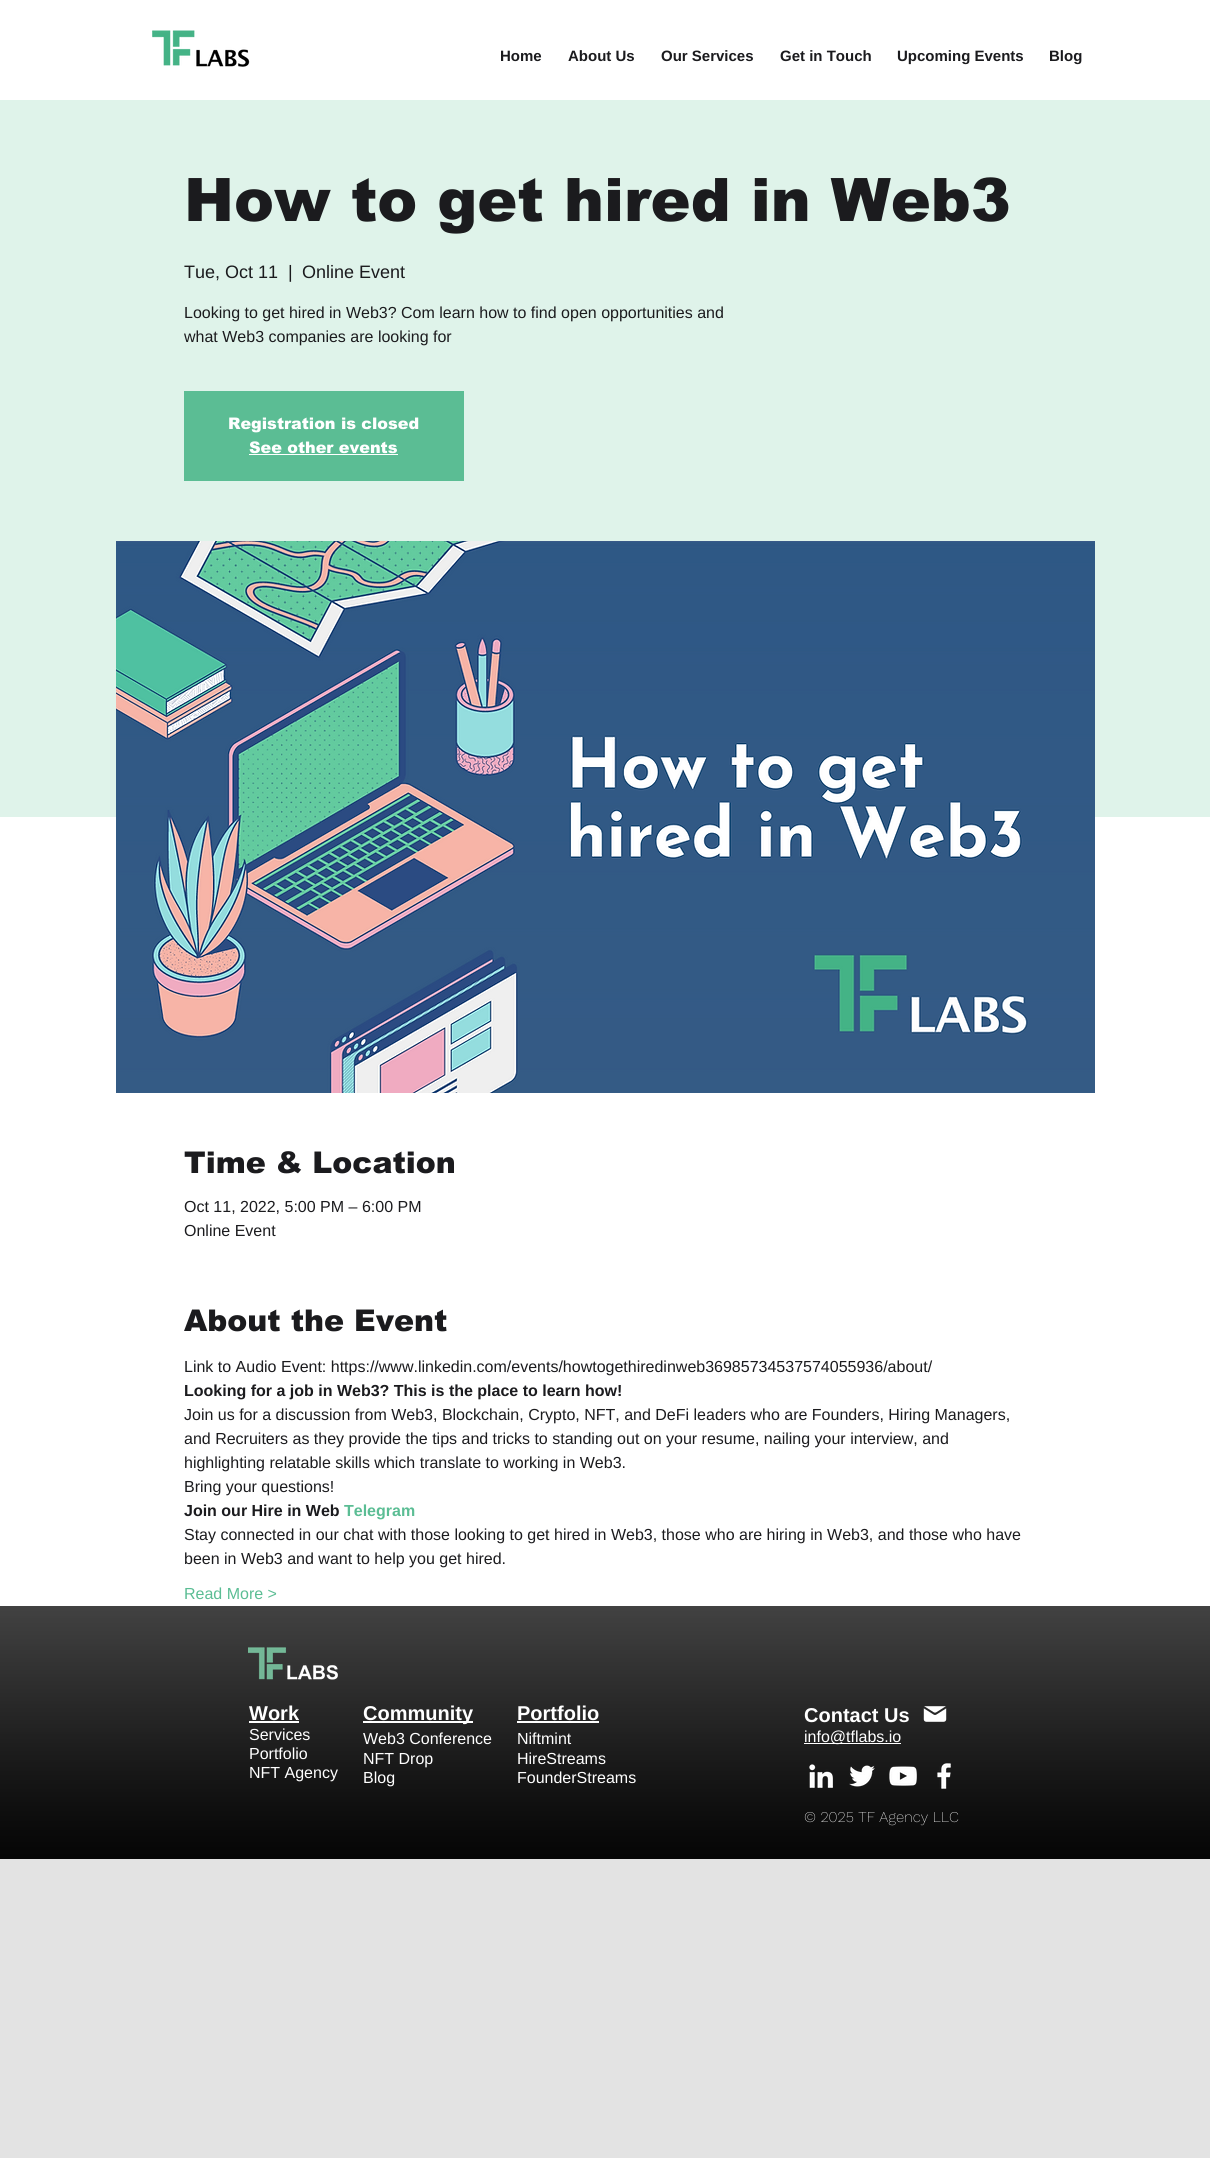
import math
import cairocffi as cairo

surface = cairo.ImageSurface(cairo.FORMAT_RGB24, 1210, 2158)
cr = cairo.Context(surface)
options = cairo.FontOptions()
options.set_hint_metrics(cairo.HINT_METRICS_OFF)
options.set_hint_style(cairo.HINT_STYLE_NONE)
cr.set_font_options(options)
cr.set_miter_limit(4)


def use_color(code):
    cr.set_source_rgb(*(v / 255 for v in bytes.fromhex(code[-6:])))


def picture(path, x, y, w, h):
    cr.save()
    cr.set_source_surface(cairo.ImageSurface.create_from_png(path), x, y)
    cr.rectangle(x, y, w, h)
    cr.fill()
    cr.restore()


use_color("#e3e3e3")
cr.paint()
use_color("#ffffff")
cr.rectangle(0, 0, 1210, 100)
cr.fill()
picture("img1.png", 152, 30, 98, 37)
cr.select_font_face("Liberation Sans", cairo.FONT_SLANT_NORMAL, cairo.FONT_WEIGHT_BOLD)
cr.set_font_size(15)
use_color("#1b1b1e")
cr.move_to(500, 61)
cr.show_text("Home")
cr.move_to(568, 61)
cr.show_text("About Us")
cr.move_to(661, 61)
cr.show_text("Our Services")
cr.move_to(780, 61)
cr.show_text("Get in Touch")
cr.move_to(897, 61)
cr.show_text("Upcoming Events")
cr.move_to(1049, 61)
cr.show_text("Blog")
use_color("#dff3ea")
cr.rectangle(0, 100, 1210, 717)
cr.fill()
cr.select_font_face("arial Black")
cr.set_font_size(60)
use_color("#1b1b1e")
cr.move_to(184, 221)
cr.show_text("How to get hired in Web3")
cr.select_font_face("Liberation Sans")
cr.set_font_size(18)
cr.move_to(184, 278)
cr.show_text("Tue, Oct 11")
cr.move_to(288, 278)
cr.show_text("|")
cr.move_to(302, 278)
cr.show_text("Online Event")
cr.set_font_size(16)
cr.move_to(184, 318)
cr.show_text("Looking to get hired in Web3? Com learn how to find open opportunities and")
cr.move_to(184, 342)
cr.show_text("what Web3 companies are looking for")
use_color("#5bbd94")
cr.rectangle(184, 391, 280, 90)
cr.fill()
cr.select_font_face("arial Black")
use_color("#ffffff")
cr.move_to(228, 429)
cr.show_text("Registration is closed")
cr.move_to(249, 453)
cr.show_text("See other events")
cr.rectangle(249, 454, 149, 1)
cr.fill()
cr.rectangle(0, 817, 1210, 789)
cr.fill()
picture("img2.png", 116, 541, 979, 552)
cr.set_font_size(30)
use_color("#1b1b1e")
cr.move_to(184, 1173)
cr.show_text("Time & Location")
cr.select_font_face("Liberation Sans")
cr.set_font_size(16)
cr.move_to(184, 1212)
cr.show_text("Oct 11, 2022, 5:00 PM – 6:00 PM")
cr.move_to(184, 1236)
cr.show_text("Online Event")
cr.select_font_face("arial Black")
cr.set_font_size(30)
cr.move_to(184, 1331)
cr.show_text("About the Event")
cr.select_font_face("Liberation Sans")
cr.set_font_size(16)
cr.move_to(184, 1372)
cr.show_text("Link to Audio Event: https://www.linkedin.com/events/howtogethiredinweb36985734537574055936/about/")
cr.select_font_face("Liberation Sans", cairo.FONT_SLANT_NORMAL, cairo.FONT_WEIGHT_BOLD)
cr.move_to(184, 1396)
cr.show_text("Looking for a job in Web3? This is the place to learn how!")
cr.select_font_face("Liberation Sans")
cr.move_to(184, 1420)
cr.show_text("Join us for a discussion from Web3, Blockchain, Crypto, NFT, and DeFi leaders who are Founders, Hiring Managers,")
cr.move_to(184, 1444)
cr.show_text("and Recruiters as they provide the tips and tricks to standing out on your resume, nailing your interview, and")
cr.move_to(184, 1468)
cr.show_text("highlighting relatable skills which translate to working in Web3.")
cr.move_to(184, 1492)
cr.show_text("Bring your questions!")
cr.select_font_face("Liberation Sans", cairo.FONT_SLANT_NORMAL, cairo.FONT_WEIGHT_BOLD)
cr.move_to(184, 1516)
cr.show_text("Join our Hire in Web")
use_color("#5bbd94")
cr.move_to(344, 1516)
cr.show_text("Telegram")
cr.select_font_face("Liberation Sans")
use_color("#1b1b1e")
cr.move_to(184, 1540)
cr.show_text("Stay connected in our chat with those looking to get hired in Web3, those who are hiring in Web3, and those who have")
cr.move_to(184, 1564)
cr.show_text("been in Web3 and want to help you get hired.")
use_color("#5bbd94")
cr.move_to(184, 1599)
cr.show_text("Read More >")
use_color("#000000")
cr.rectangle(0, 1606, 1210, 253)
cr.fill()
picture("img3.png", 0, 1606, 1210, 253)
picture("img4.png", 248, 1647, 90, 33)
cr.select_font_face("Liberation Sans", cairo.FONT_SLANT_NORMAL, cairo.FONT_WEIGHT_BOLD)
cr.set_font_size(20)
use_color("#ffffff")
cr.move_to(249, 1720)
cr.show_text("Work")
cr.rectangle(249, 1721, 50, 2)
cr.fill()
cr.select_font_face("Liberation Sans")
cr.set_font_size(16)
cr.move_to(249, 1740)
cr.show_text("Services")
cr.move_to(249, 1759)
cr.show_text("Portfolio")
cr.move_to(249, 1778)
cr.show_text("NFT Agency")
cr.rectangle(363, 1721, 110, 2)
cr.fill()
cr.select_font_face("Liberation Sans", cairo.FONT_SLANT_NORMAL, cairo.FONT_WEIGHT_BOLD)
cr.set_font_size(20)
cr.move_to(363, 1720)
cr.show_text("Community")
cr.select_font_face("Liberation Sans")
cr.set_font_size(16)
cr.move_to(363, 1744)
cr.show_text("Web3 Conference")
cr.move_to(363, 1764)
cr.show_text("NFT Drop")
cr.move_to(363, 1783)
cr.show_text("Blog")
cr.select_font_face("Liberation Sans", cairo.FONT_SLANT_NORMAL, cairo.FONT_WEIGHT_BOLD)
cr.set_font_size(20)
cr.move_to(517, 1720)
cr.show_text("Portfolio")
cr.rectangle(517, 1721, 82, 2)
cr.fill()
cr.select_font_face("Liberation Sans")
cr.set_font_size(16)
cr.move_to(517, 1744)
cr.show_text("Niftmint")
cr.move_to(517, 1764)
cr.show_text("HireStreams")
cr.move_to(517, 1783)
cr.show_text("FounderStreams")
cr.select_font_face("Liberation Sans", cairo.FONT_SLANT_NORMAL, cairo.FONT_WEIGHT_BOLD)
cr.set_font_size(20)
cr.move_to(804, 1722)
cr.show_text("Contact Us")
cr.rectangle(804, 1743, 97, 1)
cr.fill()
cr.select_font_face("Liberation Sans")
cr.set_font_size(16)
cr.move_to(804, 1742)
cr.show_text("info@tflabs.io")
picture("img5.png", 923, 1706, 24, 16)
picture("img6.png", 809, 1764, 24, 24)
picture("img7.png", 849, 1765, 26, 22)
picture("img8.png", 889, 1766, 28, 20)
picture("img9.png", 937, 1763, 14, 26)
cr.select_font_face("Work Sans ExtraLight")
cr.set_font_size(15)
cr.move_to(804, 1822)
cr.show_text("© 2025 TF Agency LLC")
surface.write_to_png("result.png")
